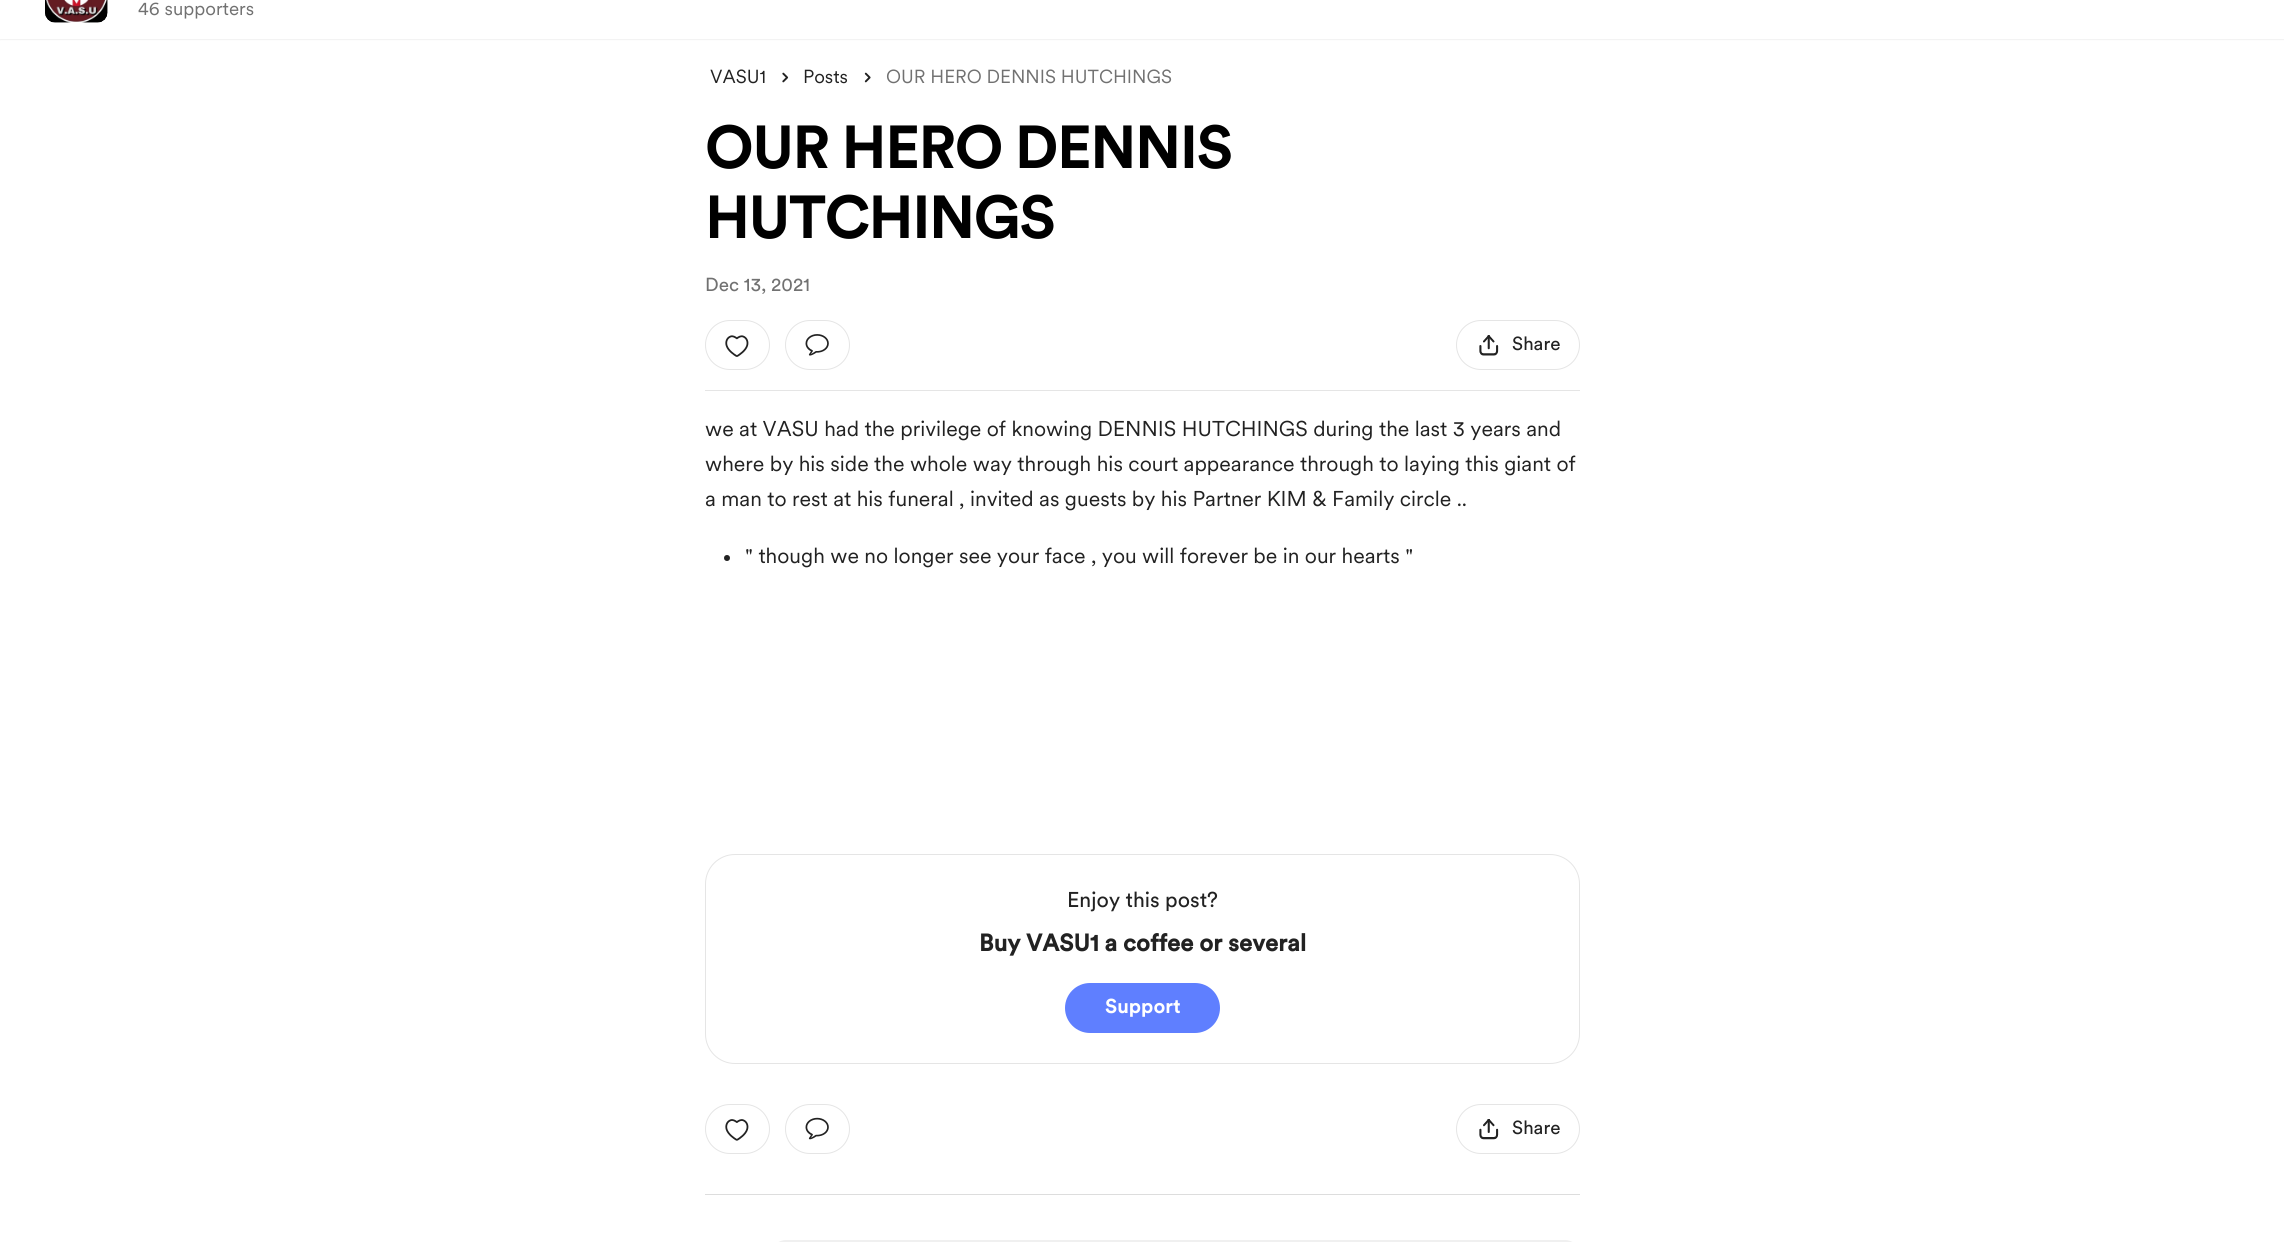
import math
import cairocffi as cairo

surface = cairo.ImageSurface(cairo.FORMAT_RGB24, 2284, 1242)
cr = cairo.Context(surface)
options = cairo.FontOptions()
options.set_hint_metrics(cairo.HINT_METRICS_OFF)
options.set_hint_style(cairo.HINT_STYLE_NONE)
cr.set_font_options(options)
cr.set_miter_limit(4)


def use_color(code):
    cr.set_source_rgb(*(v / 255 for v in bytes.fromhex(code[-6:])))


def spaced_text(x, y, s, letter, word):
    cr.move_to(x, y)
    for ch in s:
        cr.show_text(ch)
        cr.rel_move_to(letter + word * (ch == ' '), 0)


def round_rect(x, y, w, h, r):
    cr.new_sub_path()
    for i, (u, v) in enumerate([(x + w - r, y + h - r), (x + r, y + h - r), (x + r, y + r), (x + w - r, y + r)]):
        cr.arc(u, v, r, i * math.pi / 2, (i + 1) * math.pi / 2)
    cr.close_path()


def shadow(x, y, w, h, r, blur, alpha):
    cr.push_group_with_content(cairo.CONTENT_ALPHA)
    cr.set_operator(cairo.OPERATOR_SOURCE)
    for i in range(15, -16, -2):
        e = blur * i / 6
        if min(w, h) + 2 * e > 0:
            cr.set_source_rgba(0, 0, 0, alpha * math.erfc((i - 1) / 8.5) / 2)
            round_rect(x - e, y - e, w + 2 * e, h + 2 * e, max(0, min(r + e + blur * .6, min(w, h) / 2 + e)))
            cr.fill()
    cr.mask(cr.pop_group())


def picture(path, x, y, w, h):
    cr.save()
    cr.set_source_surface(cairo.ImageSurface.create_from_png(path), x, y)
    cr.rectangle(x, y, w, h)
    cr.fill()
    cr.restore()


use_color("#ffffff")
cr.paint()
use_color("#000000")
shadow(0, -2, 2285, 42, 0, 0.5, 0.06)
use_color("#ffffff")
cr.rectangle(0, 0, 2284, 39)
cr.fill()
picture("img1.png", 45, 0, 63, 23)
picture("img2.png", 45, 0, 63, 23)
cr.select_font_face("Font")
cr.set_font_size(18.75)
use_color("#717171")
cr.move_to(138, 15)
cr.show_text("46 supporters")
use_color("#222222")
cr.move_to(710, 83)
cr.show_text("VASU1")
picture("img3.png", 782, 72, 7, 11)
cr.move_to(803, 83)
cr.show_text("Posts")
picture("img4.png", 864, 72, 7, 11)
use_color("#717171")
cr.move_to(886, 83)
cr.show_text("OUR HERO DENNIS HUTCHINGS")
cr.select_font_face("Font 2", cairo.FONT_SLANT_NORMAL, cairo.FONT_WEIGHT_BOLD)
cr.set_font_size(60)
use_color("#000000")
spaced_text(705, 168, "OUR HERO DENNIS", -1.5, 0)
spaced_text(705, 238, "HUTCHINGS", -1.5, 0)
cr.select_font_face("Font 2")
cr.set_font_size(18.75)
use_color("#717171")
cr.move_to(705, 291)
cr.show_text("Dec 13, 2021")
use_color("#e5e5e5")
cr.rectangle(705, 390, 875, 1)
cr.fill()
round_rect(705.5, 320.5, 64, 49, 24.5)
cr.set_line_width(1)
cr.stroke()
picture("img5.png", 725, 335, 24, 22)
round_rect(785.5, 320.5, 64, 49, 24.5)
cr.stroke()
picture("img6.png", 805, 334, 24, 22)
round_rect(1456.5, 320.5, 123, 49, 24.5)
cr.stroke()
picture("img7.png", 1479, 335, 20, 21)
use_color("#222222")
cr.move_to(1512, 350)
cr.show_text("Share")
cr.select_font_face("Font")
cr.set_font_size(21.25)
cr.move_to(705, 436)
cr.show_text("we at VASU had the privilege of knowing DENNIS HUTCHINGS during the last 3 years and")
cr.move_to(705, 471)
cr.show_text("where by his side the whole way through his court appearance through to laying this giant of")
cr.move_to(705, 506)
cr.show_text("a man to rest at his funeral , invited as guests by his Partner KIM & Family circle ..")
cr.new_path()
cr.arc(727, 558, 3, 0, 2 * math.pi)
cr.fill()
cr.move_to(745, 563)
cr.show_text("\" though we no longer see your face , you will forever be in our hearts \"")
round_rect(705.5, 854.5, 874, 209, 29.5)
use_color("#e5e5e5")
cr.stroke()
cr.select_font_face("Font 2")
use_color("#222222")
cr.move_to(1067, 907)
cr.show_text("Enjoy this post?")
cr.select_font_face("Font", cairo.FONT_SLANT_NORMAL, cairo.FONT_WEIGHT_BOLD)
cr.set_font_size(23.75)
cr.move_to(979, 951)
cr.show_text("Buy VASU1 a coffee or several")
use_color("#5f7fff")
round_rect(1065, 983, 155, 50, 25)
cr.fill()
cr.select_font_face("Font 2", cairo.FONT_SLANT_NORMAL, cairo.FONT_WEIGHT_BOLD)
cr.set_font_size(20)
use_color("#ffffff")
cr.move_to(1105, 1013)
cr.show_text("Support")
round_rect(705.5, 1104.5, 64, 49, 24.5)
use_color("#e5e5e5")
cr.stroke()
picture("img8.png", 725, 1119, 24, 22)
round_rect(785.5, 1104.5, 64, 49, 24.5)
cr.stroke()
picture("img9.png", 805, 1117, 24, 23)
round_rect(1456.5, 1104.5, 123, 49, 24.5)
cr.stroke()
picture("img10.png", 1479, 1119, 20, 21)
cr.select_font_face("Font 2")
cr.set_font_size(18.75)
use_color("#222222")
cr.move_to(1512, 1134)
cr.show_text("Share")
use_color("#dddddd")
cr.rectangle(705, 1194, 875, 1)
cr.fill()
use_color("#f0f0f0")
round_rect(771, 1240, 809, 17, 15)
cr.fill()
surface.write_to_png("result.png")
